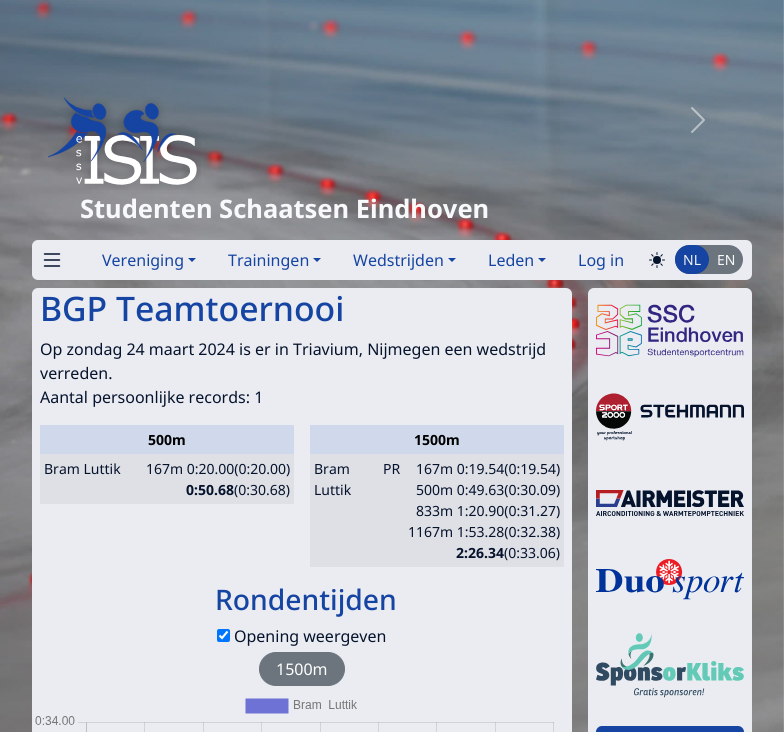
import math
import cairocffi as cairo

surface = cairo.ImageSurface(cairo.FORMAT_RGB24, 784, 732)
cr = cairo.Context(surface)
options = cairo.FontOptions()
options.set_hint_metrics(cairo.HINT_METRICS_OFF)
options.set_hint_style(cairo.HINT_STYLE_NONE)
cr.set_font_options(options)
cr.set_miter_limit(4)


def use_color(code):
    cr.set_source_rgb(*(v / 255 for v in bytes.fromhex(code[-6:])))


def round_rect(x, y, w, h, r):
    cr.new_sub_path()
    for i, (u, v) in enumerate([(x + w - r, y + h - r), (x + r, y + h - r), (x + r, y + r), (x + w - r, y + r)]):
        cr.arc(u, v, r, i * math.pi / 2, (i + 1) * math.pi / 2)
    cr.close_path()


def picture(path, x, y, w, h):
    cr.save()
    cr.set_source_surface(cairo.ImageSurface.create_from_png(path), x, y)
    cr.rectangle(x, y, w, h)
    cr.fill()
    cr.restore()


use_color("#ffffff")
cr.paint()
picture("img1.png", 0, 0, 784, 732)
picture("img2.png", 691, 107, 14, 26)
picture("img3.png", 48, 97, 153, 93)
cr.select_font_face("Noto Sans", cairo.FONT_SLANT_NORMAL, cairo.FONT_WEIGHT_BOLD)
cr.set_font_size(25.5)
use_color("#f8f9fa")
cr.move_to(80, 218)
cr.show_text("Studenten Schaatsen Eindhoven")
use_color("#eaecf1")
round_rect(32, 240, 720, 40, 6)
cr.fill()
picture("img4.png", 43, 253, 18, 14)
cr.select_font_face("Noto Sans")
cr.set_font_size(16)
use_color("#1544a2")
cr.move_to(102, 266)
cr.show_text("Vereniging")
cr.new_path()
cr.move_to(188, 258)
cr.line_to(196, 258)
cr.line_to(192, 262)
cr.close_path()
cr.fill()
cr.move_to(228, 266)
cr.show_text("Trainingen")
cr.new_path()
cr.move_to(313, 258)
cr.line_to(321, 258)
cr.line_to(317, 262)
cr.close_path()
cr.fill()
cr.move_to(353, 266)
cr.show_text("Wedstrijden")
cr.new_path()
cr.move_to(448, 258)
cr.line_to(456, 258)
cr.line_to(452, 262)
cr.close_path()
cr.fill()
cr.move_to(488, 266)
cr.show_text("Leden")
cr.new_path()
cr.move_to(538, 258)
cr.line_to(546, 258)
cr.line_to(542, 262)
cr.close_path()
cr.fill()
cr.move_to(578, 266)
cr.show_text("Log in")
picture("img5.png", 649, 252, 16, 16)
use_color("#6c757d")
round_rect(675, 245, 68, 29, 14.5)
cr.fill()
use_color("#1544a2")
round_rect(675, 245, 34, 29, 14.5)
cr.fill()
cr.set_font_size(14)
use_color("#f0f2f4")
cr.move_to(683, 265)
cr.show_text("NL")
use_color("#f8f9fa")
cr.move_to(717, 265)
cr.show_text("EN")
use_color("#eaecf1")
round_rect(32, 288, 540, 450, 6)
cr.fill()
cr.select_font_face("Noto Sans Medium")
cr.set_font_size(33.75)
use_color("#1544a2")
cr.move_to(40, 321)
cr.show_text("BGP Teamtoernooi")
cr.select_font_face("Noto Sans")
cr.set_font_size(16)
use_color("#06132d")
cr.move_to(40, 355)
cr.show_text("Op zondag 24 maart 2024 is er in Triavium, Nijmegen een wedstrijd")
cr.move_to(40, 379)
cr.show_text("verreden.")
cr.move_to(40, 403)
cr.show_text("Aantal persoonlijke records: 1")
use_color("#d0d9ec")
cr.rectangle(40, 425, 254, 29)
cr.fill()
cr.select_font_face("Noto Sans", cairo.FONT_SLANT_NORMAL, cairo.FONT_WEIGHT_BOLD)
cr.set_font_size(14)
use_color("#000000")
cr.move_to(148, 445)
cr.show_text("500m")
use_color("#dee0e5")
cr.rectangle(40, 454, 254, 50)
cr.fill()
cr.select_font_face("Noto Sans")
use_color("#06132d")
cr.move_to(44, 474)
cr.show_text("Bram Luttik")
cr.move_to(146, 474)
cr.show_text("167m 0:20.00(0:20.00)")
cr.select_font_face("Noto Sans", cairo.FONT_SLANT_NORMAL, cairo.FONT_WEIGHT_BOLD)
cr.move_to(186, 495)
cr.show_text("0:50.68")
cr.select_font_face("Noto Sans")
cr.move_to(234, 495)
cr.show_text("(0:30.68)")
use_color("#d0d9ec")
cr.rectangle(310, 425, 254, 29)
cr.fill()
cr.select_font_face("Noto Sans", cairo.FONT_SLANT_NORMAL, cairo.FONT_WEIGHT_BOLD)
use_color("#000000")
cr.move_to(414, 445)
cr.show_text("1500m")
use_color("#dee0e5")
cr.rectangle(310, 454, 254, 113)
cr.fill()
cr.select_font_face("Noto Sans")
use_color("#06132d")
cr.move_to(314, 474)
cr.show_text("Bram")
cr.move_to(314, 495)
cr.show_text("Luttik")
cr.move_to(383, 474)
cr.show_text("PR")
cr.move_to(416, 474)
cr.show_text("167m 0:19.54(0:19.54)")
cr.move_to(416, 495)
cr.show_text("500m 0:49.63(0:30.09)")
cr.move_to(416, 516)
cr.show_text("833m 1:20.90(0:31.27)")
cr.move_to(408, 537)
cr.show_text("1167m 1:53.28(0:32.38)")
cr.select_font_face("Noto Sans", cairo.FONT_SLANT_NORMAL, cairo.FONT_WEIGHT_BOLD)
cr.move_to(456, 558)
cr.show_text("2:26.34")
cr.select_font_face("Noto Sans")
cr.move_to(504, 558)
cr.show_text("(0:33.06)")
cr.select_font_face("Noto Sans Medium")
cr.set_font_size(28.25)
use_color("#1544a2")
cr.move_to(215, 610)
cr.show_text("Rondentijden")
use_color("#0075ff")
round_rect(217, 629, 13, 13, 2)
cr.fill()
cr.new_path()
cr.move_to(219.5, 635.5)
cr.line_to(222, 638)
cr.line_to(227.5, 631.5)
use_color("#ffffff")
cr.set_line_width(2.1)
cr.stroke()
cr.select_font_face("Noto Sans")
cr.set_font_size(16)
use_color("#06132d")
cr.move_to(234, 642)
cr.show_text("Opening weergeven")
use_color("#6c757d")
round_rect(259.5, 652.5, 85, 33, 16.5)
cr.fill_preserve()
cr.set_line_width(1)
cr.stroke()
use_color("#ffffff")
cr.move_to(276, 675)
cr.show_text("1500m")
picture("img6.png", 35, 698, 519, 34)
use_color("#eaecf1")
round_rect(588, 288, 164, 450, 6)
cr.fill()
picture("img7.png", 596, 304, 148, 53)
picture("img8.png", 596, 393, 148, 48)
picture("img9.png", 596, 490, 148, 26)
picture("img10.png", 596, 559, 148, 41)
picture("img11.png", 596, 633, 148, 65)
use_color("#1544a2")
round_rect(596, 726, 148, 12, 6)
cr.fill()
surface.write_to_png("result.png")
